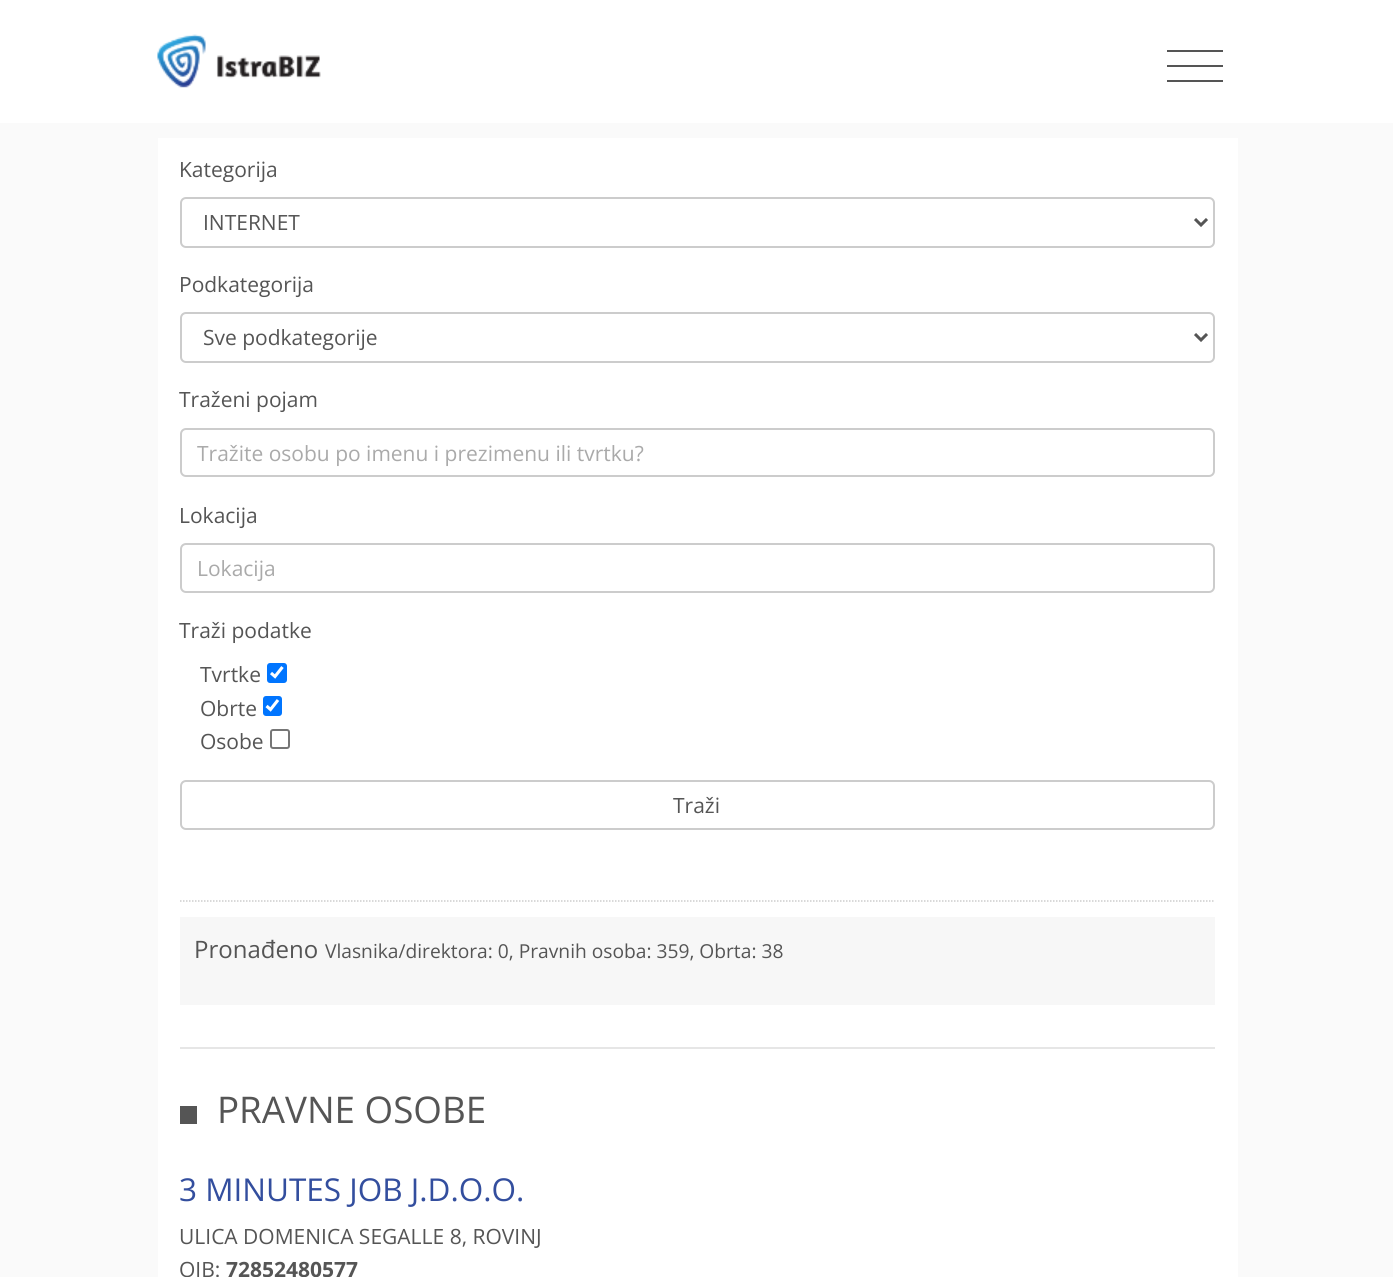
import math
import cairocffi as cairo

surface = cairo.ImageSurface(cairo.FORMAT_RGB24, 1393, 1277)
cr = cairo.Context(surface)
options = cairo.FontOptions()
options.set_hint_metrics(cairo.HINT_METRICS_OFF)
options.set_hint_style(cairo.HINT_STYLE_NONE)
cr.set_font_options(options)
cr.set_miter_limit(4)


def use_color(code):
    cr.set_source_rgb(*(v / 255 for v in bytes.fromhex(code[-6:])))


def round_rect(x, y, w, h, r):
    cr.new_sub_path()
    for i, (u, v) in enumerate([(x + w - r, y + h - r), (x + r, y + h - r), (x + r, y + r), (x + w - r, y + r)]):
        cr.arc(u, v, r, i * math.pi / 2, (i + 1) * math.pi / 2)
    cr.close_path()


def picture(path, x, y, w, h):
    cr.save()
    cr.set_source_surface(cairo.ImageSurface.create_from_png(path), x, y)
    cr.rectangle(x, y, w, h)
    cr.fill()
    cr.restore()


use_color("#ffffff")
cr.paint()
picture("img1.png", 157, 34, 164, 54)
use_color("#555555")
cr.rectangle(1167, 50, 56, 2)
cr.fill()
cr.rectangle(1167, 65, 56, 2)
cr.fill()
cr.rectangle(1167, 80, 56, 2)
cr.fill()
use_color("#fafafa")
cr.rectangle(0, 123, 1393, 1154)
cr.fill()
use_color("#ffffff")
cr.rectangle(158, 138, 1080, 1139)
cr.fill()
cr.select_font_face("Open Sans")
cr.set_font_size(21)
use_color("#555555")
cr.move_to(179, 177)
cr.show_text("Kategorija")
round_rect(181, 198, 1033, 49, 5)
use_color("#cccccc")
cr.stroke()
cr.new_path()
cr.move_to(1195, 219)
cr.line_to(1201, 225)
cr.line_to(1207, 219)
use_color("#555555")
cr.set_line_width(3)
cr.stroke()
cr.move_to(203, 230)
cr.show_text("INTERNET")
cr.move_to(179, 292)
cr.show_text("Podkategorija")
round_rect(181, 313, 1033, 49, 5)
use_color("#cccccc")
cr.set_line_width(2)
cr.stroke()
cr.new_path()
cr.move_to(1195, 334)
cr.line_to(1201, 340)
cr.line_to(1207, 334)
use_color("#555555")
cr.set_line_width(3)
cr.stroke()
cr.move_to(203, 345)
cr.show_text("Sve podkategorije")
cr.move_to(179, 407)
cr.show_text("Traženi pojam")
round_rect(181, 429, 1033, 47, 5)
use_color("#cccccc")
cr.set_line_width(2)
cr.stroke()
use_color("#aaaaaa")
cr.move_to(197, 461)
cr.show_text("Tražite osobu po imenu i prezimenu ili tvrtku?")
use_color("#555555")
cr.move_to(179, 523)
cr.show_text("Lokacija")
round_rect(181, 544, 1033, 48, 5)
use_color("#cccccc")
cr.stroke()
use_color("#aaaaaa")
cr.move_to(197, 576)
cr.show_text("Lokacija")
use_color("#555555")
cr.move_to(179, 638)
cr.show_text("Traži podatke")
cr.move_to(200, 682)
cr.show_text("Tvrtke")
use_color("#0075ff")
round_rect(267, 663, 20, 20, 3)
cr.fill()
cr.new_path()
cr.move_to(271, 673)
cr.line_to(275, 676.5)
cr.line_to(282.5, 667)
use_color("#ffffff")
cr.set_line_width(3.1)
cr.stroke()
use_color("#555555")
cr.move_to(200, 716)
cr.show_text("Obrte")
use_color("#0075ff")
round_rect(263, 696, 19, 20, 3)
cr.fill()
cr.new_path()
cr.move_to(266.5, 706)
cr.line_to(270.5, 709.5)
cr.line_to(278, 700)
use_color("#ffffff")
cr.stroke()
use_color("#555555")
cr.move_to(200, 749)
cr.show_text("Osobe")
round_rect(271, 730, 18, 18, 2)
use_color("#767676")
cr.set_line_width(2)
cr.stroke()
round_rect(181, 781, 1033, 48, 5)
use_color("#cccccc")
cr.stroke()
use_color("#555555")
cr.move_to(673, 813)
cr.show_text("Traži")
cr.new_path()
cr.move_to(180, 901)
cr.line_to(1215, 901)
use_color("#cccccc")
cr.set_line_width(1.5)
cr.set_dash([1.5, 1.5])
cr.stroke()
use_color("#f7f7f7")
cr.rectangle(180, 917, 1035, 88)
cr.fill()
cr.set_font_size(24)
use_color("#555555")
cr.move_to(194, 958)
cr.show_text("Pronađeno")
cr.set_font_size(19.2)
cr.move_to(325, 958)
cr.show_text("Vlasnika/direktora: 0, Pravnih osoba: 359, Obrta: 38")
use_color("#e6e6e6")
cr.rectangle(180, 1047, 1035, 2)
cr.fill()
use_color("#555555")
cr.rectangle(180, 1106, 17, 18)
cr.fill()
cr.set_font_size(36.75)
cr.move_to(217, 1123)
cr.show_text("PRAVNE OSOBE")
cr.set_font_size(31.5)
use_color("#334e9e")
cr.move_to(179, 1201)
cr.show_text("3 MINUTES JOB J.D.O.O.")
cr.set_font_size(21)
use_color("#555555")
cr.move_to(179, 1244)
cr.show_text("ULICA DOMENICA SEGALLE 8, ROVINJ")
cr.move_to(179, 1277)
cr.show_text("OIB:")
cr.select_font_face("Open Sans", cairo.FONT_SLANT_NORMAL, cairo.FONT_WEIGHT_BOLD)
cr.move_to(226, 1277)
cr.show_text("72852480577")
surface.write_to_png("result.png")
